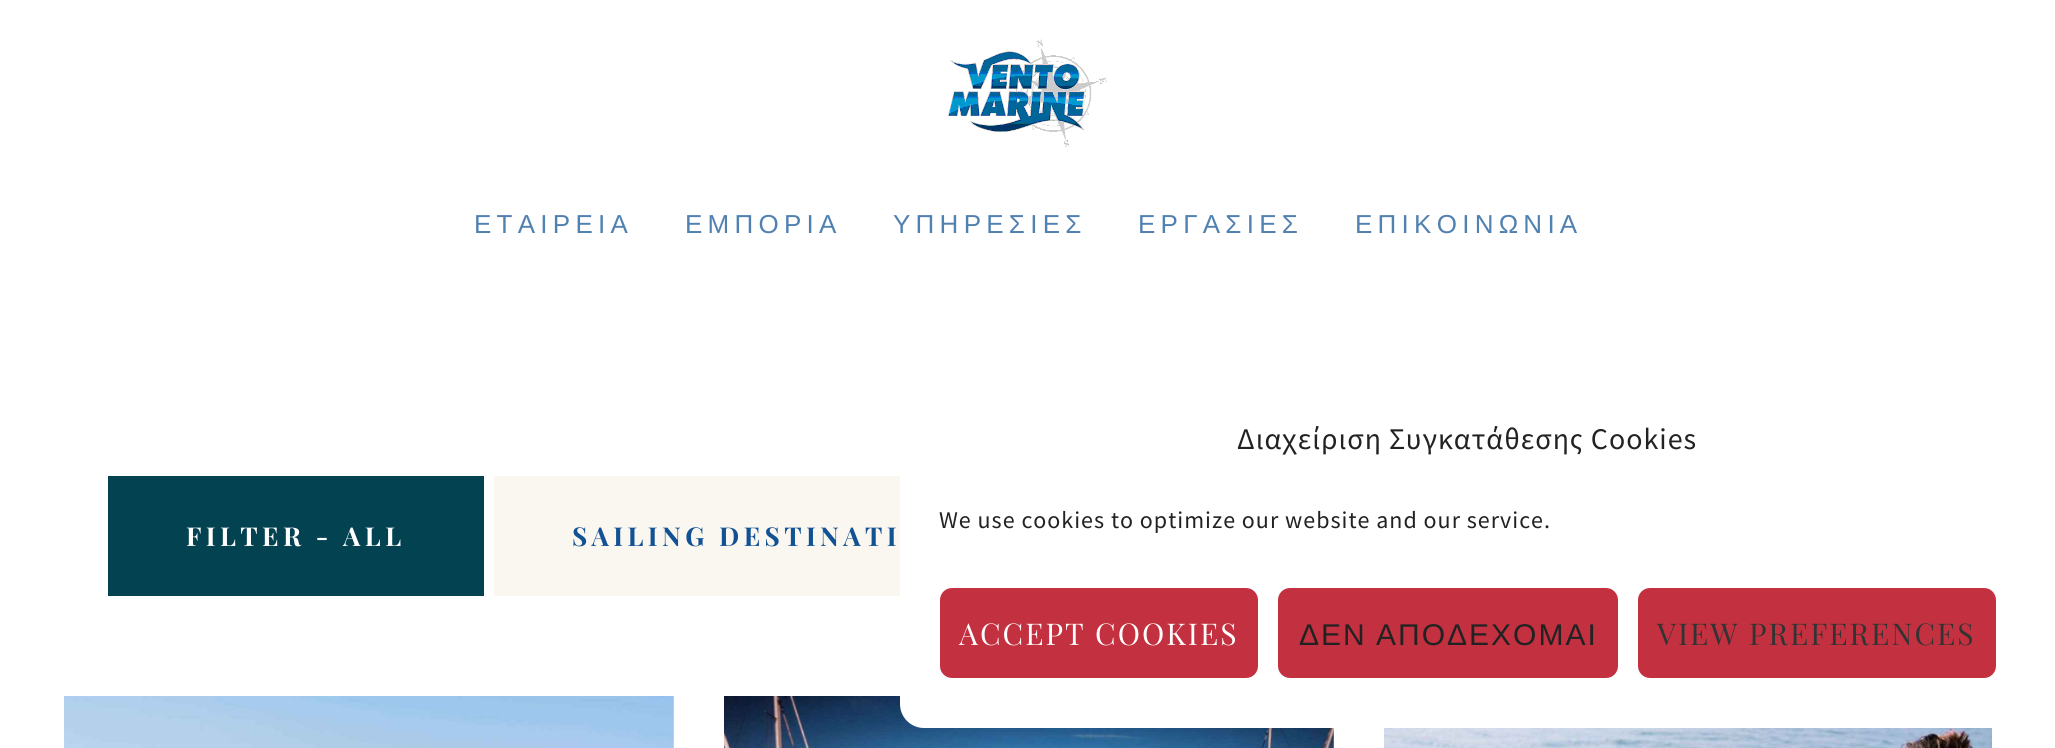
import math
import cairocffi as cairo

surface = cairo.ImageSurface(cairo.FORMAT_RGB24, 2055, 748)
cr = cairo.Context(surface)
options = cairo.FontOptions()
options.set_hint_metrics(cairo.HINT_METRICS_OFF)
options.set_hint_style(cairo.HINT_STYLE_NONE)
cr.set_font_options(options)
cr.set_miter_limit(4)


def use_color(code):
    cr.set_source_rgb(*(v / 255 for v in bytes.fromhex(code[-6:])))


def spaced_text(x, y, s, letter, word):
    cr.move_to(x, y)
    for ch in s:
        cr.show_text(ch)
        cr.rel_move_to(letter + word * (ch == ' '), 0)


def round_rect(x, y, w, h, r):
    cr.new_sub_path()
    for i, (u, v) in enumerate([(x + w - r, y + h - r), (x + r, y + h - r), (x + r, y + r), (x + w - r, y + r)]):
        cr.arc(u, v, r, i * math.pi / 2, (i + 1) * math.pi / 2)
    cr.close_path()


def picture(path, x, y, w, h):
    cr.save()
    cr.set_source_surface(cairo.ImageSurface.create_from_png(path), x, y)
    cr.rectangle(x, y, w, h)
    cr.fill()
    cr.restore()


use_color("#ffffff")
cr.paint()
picture("img1.png", 948, 39, 159, 108)
cr.select_font_face("Liberation Sans")
cr.set_font_size(26)
use_color("#5181b0")
spaced_text(474, 233, "ΕΤΑΙΡΕΙΑ", 5.25, 0)
spaced_text(685, 233, "ΕΜΠΟΡΙΑ", 5.25, 0)
spaced_text(893, 233, "ΥΠΗΡΕΣΙΕΣ", 5.25, 0)
spaced_text(1138, 233, "ΕΡΓΑΣΙΕΣ", 5.25, 0)
spaced_text(1355, 233, "ΕΠΙΚΟΙΝΩΝΙΑ", 5.25, 0)
use_color("#034250")
cr.rectangle(108, 476, 376, 120)
cr.fill()
cr.select_font_face("Playfair Display", cairo.FONT_SLANT_NORMAL, cairo.FONT_WEIGHT_BOLD)
use_color("#ffffff")
spaced_text(186, 546, "FILTER - ALL", 4.4, 0)
use_color("#faf6f0")
cr.rectangle(494, 476, 406, 120)
cr.fill()
use_color("#125294")
spaced_text(572, 546, "SAILING DESTINATI", 4.4, 0)
picture("img2.png", 64, 696, 610, 52)
picture("img3.png", 724, 696, 610, 52)
picture("img4.png", 1384, 728, 608, 20)
use_color("#ffffff")
round_rect(900, 386, 1136, 342, 24)
cr.fill()
cr.select_font_face("Source Sans Pro")
cr.set_font_size(30)
use_color("#222222")
spaced_text(1237, 449, "Διαχείριση Συγκατάθεσης Cookies", 1, 0)
cr.set_font_size(24)
spaced_text(939, 528, "We use cookies to optimize our website and our service.", 1, 0)
use_color("#c33040")
round_rect(940, 588, 318, 90, 12)
cr.fill()
cr.select_font_face("Playfair Display")
cr.set_font_size(30)
use_color("#ffffff")
spaced_text(959, 645, "ACCEPT COOKIES", 2, 0)
use_color("#c33040")
round_rect(1278, 588, 340, 90, 12)
cr.fill()
cr.select_font_face("Liberation Sans")
use_color("#222222")
spaced_text(1299, 645, "ΔΕΝ ΑΠΟΔΕΧΟΜΑΙ", 2, -1)
use_color("#c33040")
round_rect(1638, 588, 358, 90, 12)
cr.fill()
cr.select_font_face("Playfair Display")
use_color("#333333")
spaced_text(1657, 645, "VIEW PREFERENCES", 2, 0)
surface.write_to_png("result.png")
